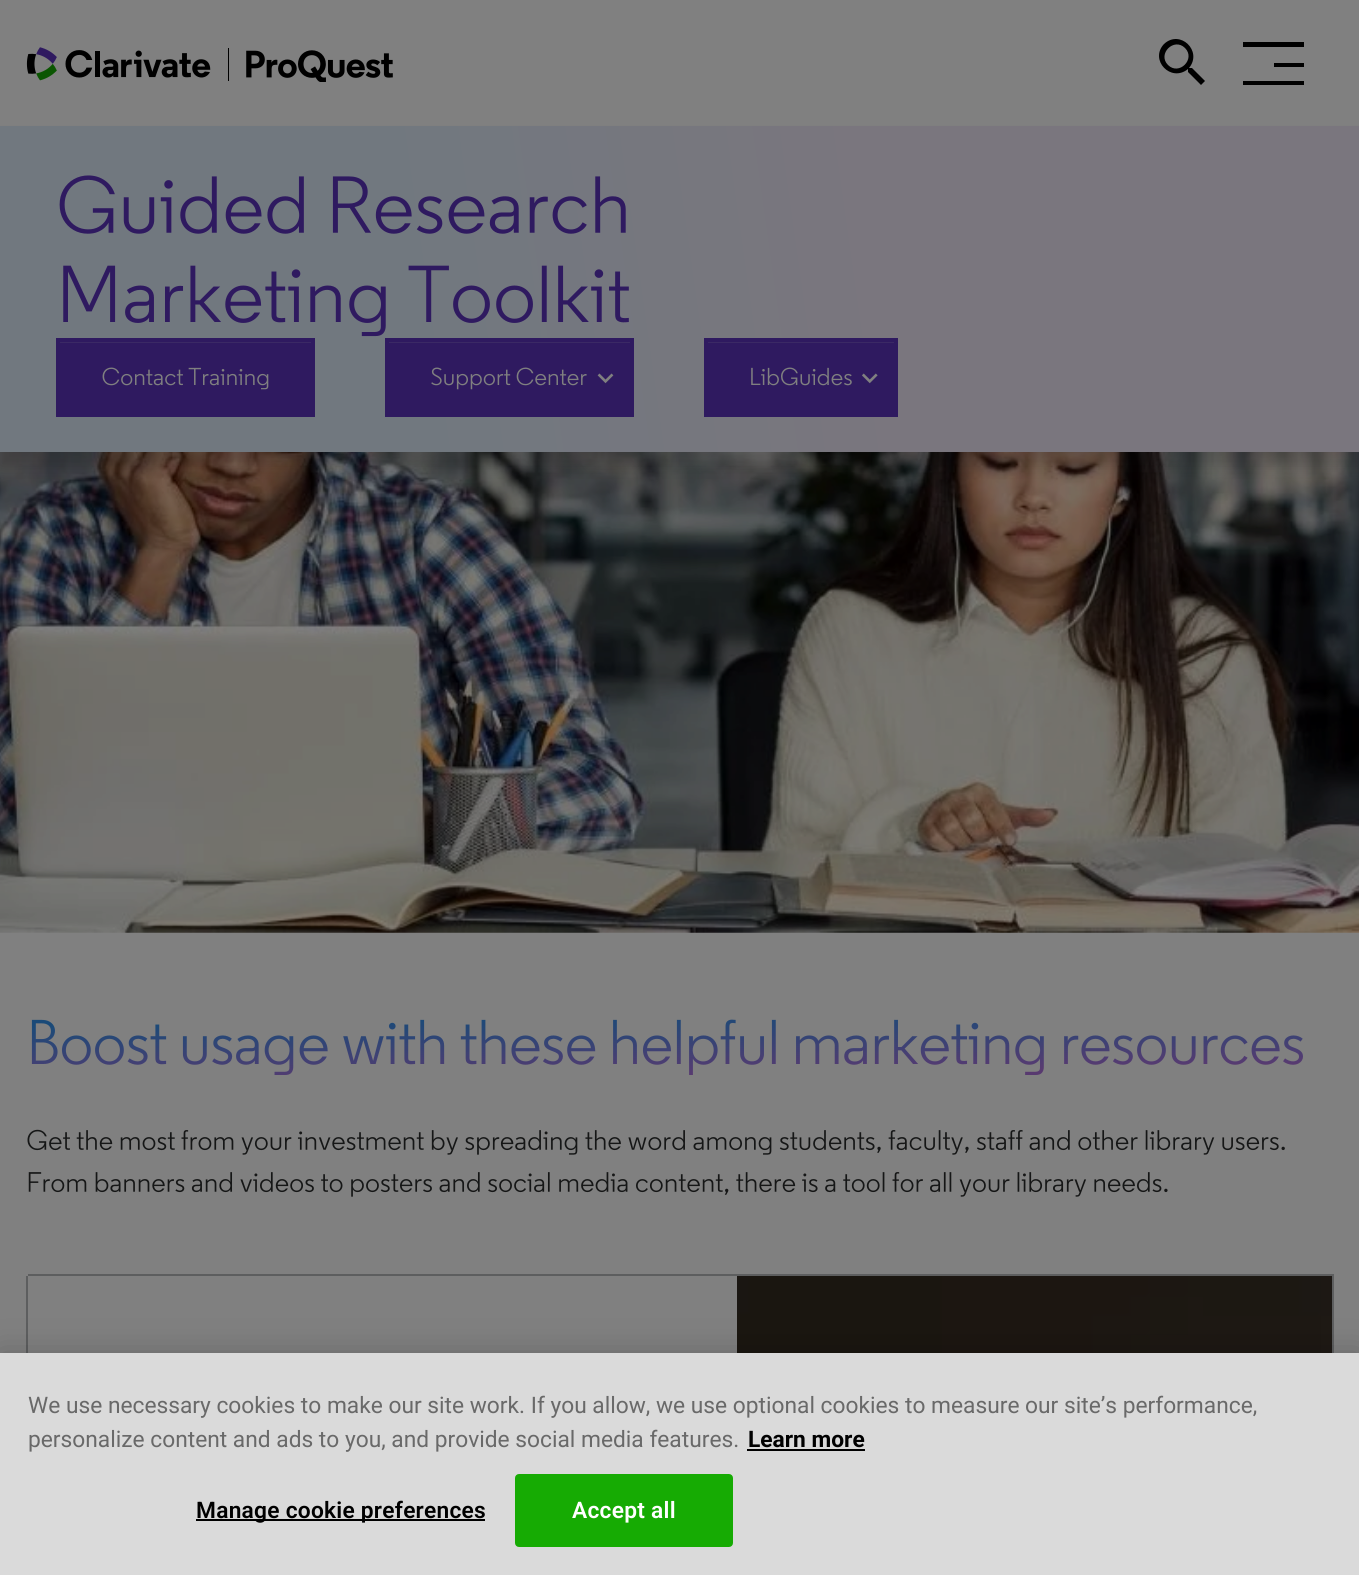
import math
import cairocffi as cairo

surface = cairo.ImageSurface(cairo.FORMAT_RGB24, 1359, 1575)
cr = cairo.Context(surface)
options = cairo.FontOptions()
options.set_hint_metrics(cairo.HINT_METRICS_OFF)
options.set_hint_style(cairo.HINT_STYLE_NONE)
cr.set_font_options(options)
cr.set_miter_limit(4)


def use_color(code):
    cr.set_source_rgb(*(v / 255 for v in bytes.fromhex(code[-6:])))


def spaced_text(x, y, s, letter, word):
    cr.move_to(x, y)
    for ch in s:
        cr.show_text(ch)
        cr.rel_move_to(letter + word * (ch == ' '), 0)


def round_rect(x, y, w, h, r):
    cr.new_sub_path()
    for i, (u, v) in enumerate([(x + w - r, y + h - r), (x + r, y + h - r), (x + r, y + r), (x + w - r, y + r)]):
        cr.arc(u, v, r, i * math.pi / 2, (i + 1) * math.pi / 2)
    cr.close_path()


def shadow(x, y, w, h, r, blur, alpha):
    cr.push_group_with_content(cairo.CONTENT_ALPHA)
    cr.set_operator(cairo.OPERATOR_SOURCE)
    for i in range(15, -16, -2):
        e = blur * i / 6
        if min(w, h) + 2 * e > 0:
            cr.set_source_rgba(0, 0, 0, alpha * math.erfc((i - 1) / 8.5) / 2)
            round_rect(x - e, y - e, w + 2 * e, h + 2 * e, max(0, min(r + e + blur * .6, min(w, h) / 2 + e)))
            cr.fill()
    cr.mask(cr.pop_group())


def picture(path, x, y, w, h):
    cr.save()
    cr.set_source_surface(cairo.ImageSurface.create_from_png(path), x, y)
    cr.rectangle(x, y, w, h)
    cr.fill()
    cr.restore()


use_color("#808080")
cr.paint()
picture("img1.png", 26, 47, 367, 35)
use_color("#000000")
cr.new_path()
cr.move_to(1168, 65)
cr.curve_to(1179, 76, 1196, 59, 1185, 48)
cr.curve_to(1174, 37, 1157, 54, 1168, 65)
cr.close_path()
cr.move_to(1192, 68)
cr.line_to(1205, 81)
cr.line_to(1201, 85)
cr.line_to(1188, 72)
cr.line_to(1188, 70)
cr.line_to(1188, 69)
cr.curve_to(1171, 83, 1149, 60, 1164, 44)
cr.curve_to(1180, 29, 1203, 51, 1189, 68)
cr.line_to(1190, 68)
cr.close_path()
cr.fill()
cr.rectangle(1243, 42, 61, 5)
cr.fill()
cr.rectangle(1274, 63, 30, 4)
cr.fill()
cr.rectangle(1243, 81, 61, 4)
cr.fill()
picture("img9.png", 0, 452, 1359, 481)
use_color("#0f0f0f")
shadow(0, 140, 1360, 326, 0, 7, 0.2)
gradient = cairo.LinearGradient(-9, 386, 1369, 192)
gradient.add_color_stop_rgba(0.3, 0.443, 0.471, 0.498, 1)
gradient.add_color_stop_rgba(0.64, 0.478, 0.463, 0.494, 1)
cr.set_source(gradient)
cr.rectangle(0, 126, 1359, 326)
cr.fill()
picture("img2.png", 59, 175, 567, 59)
picture("img3.png", 63, 265, 566, 72)
use_color("#2f1a60")
cr.rectangle(60, 343, 251, 70)
cr.fill()
use_color("#3b2965")
cr.rectangle(60, 342, 252, 1)
cr.fill()
cr.rectangle(58, 340, 255, 75)
use_color("#2f1a60")
cr.set_line_width(4)
cr.stroke()
picture("img4.png", 102, 367, 167, 23)
cr.rectangle(389, 343, 241, 70)
cr.fill()
use_color("#3b2965")
cr.rectangle(389, 342, 241, 1)
cr.fill()
cr.rectangle(387, 340, 245, 75)
use_color("#2f1a60")
cr.stroke()
picture("img5.png", 431, 367, 156, 23)
picture("img6.png", 597, 373, 17, 11)
cr.rectangle(708, 343, 186, 70)
cr.fill()
use_color("#3b2965")
cr.rectangle(707, 342, 187, 1)
cr.fill()
cr.rectangle(706, 340, 190, 75)
use_color("#2f1a60")
cr.stroke()
picture("img7.png", 751, 367, 101, 19)
picture("img8.png", 862, 373, 16, 11)
picture("img10.png", 31, 1019, 1272, 56)
picture("img11.png", 27, 1129, 1258, 26)
picture("img12.png", 28, 1172, 1140, 25)
use_color("#5d5e5f")
cr.rectangle(26, 1276, 2, 77)
cr.fill()
picture("img13.png", 737, 1276, 595, 77)
cr.rectangle(28, 1274, 1306, 2)
cr.fill()
cr.rectangle(1332, 1274, 2, 79)
cr.fill()
use_color("#000000")
shadow(0, 1353, 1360, 222, 0, 16, 0.2)
use_color("#dadada")
cr.rectangle(0, 1353, 1359, 222)
cr.fill()
cr.select_font_face("Roboto")
cr.set_font_size(22.75)
use_color("#696969")
cr.move_to(28, 1413)
cr.show_text("We use necessary cookies to make our site work. If you allow, we use optional cookies to measure our site’s performance,")
cr.move_to(28, 1447)
cr.show_text("personalize content and ads to you, and provide social media features.")
cr.select_font_face("Roboto", cairo.FONT_SLANT_NORMAL, cairo.FONT_WEIGHT_BOLD)
use_color("#000000")
cr.move_to(748, 1447)
cr.show_text("Learn more")
cr.rectangle(747, 1449, 118, 2)
cr.fill()
cr.rectangle(196, 1519, 289, 2)
cr.fill()
cr.select_font_face("Roboto SemiBold")
spaced_text(196, 1518, "Manage cookie preferences", 0.25, 0)
use_color("#16ab03")
round_rect(516, 1475, 216, 71, 3)
cr.fill_preserve()
cr.set_line_width(2)
cr.stroke()
use_color("#ffffff")
spaced_text(572, 1518, "Accept all", 0.25, 0)
surface.write_to_png("result.png")
